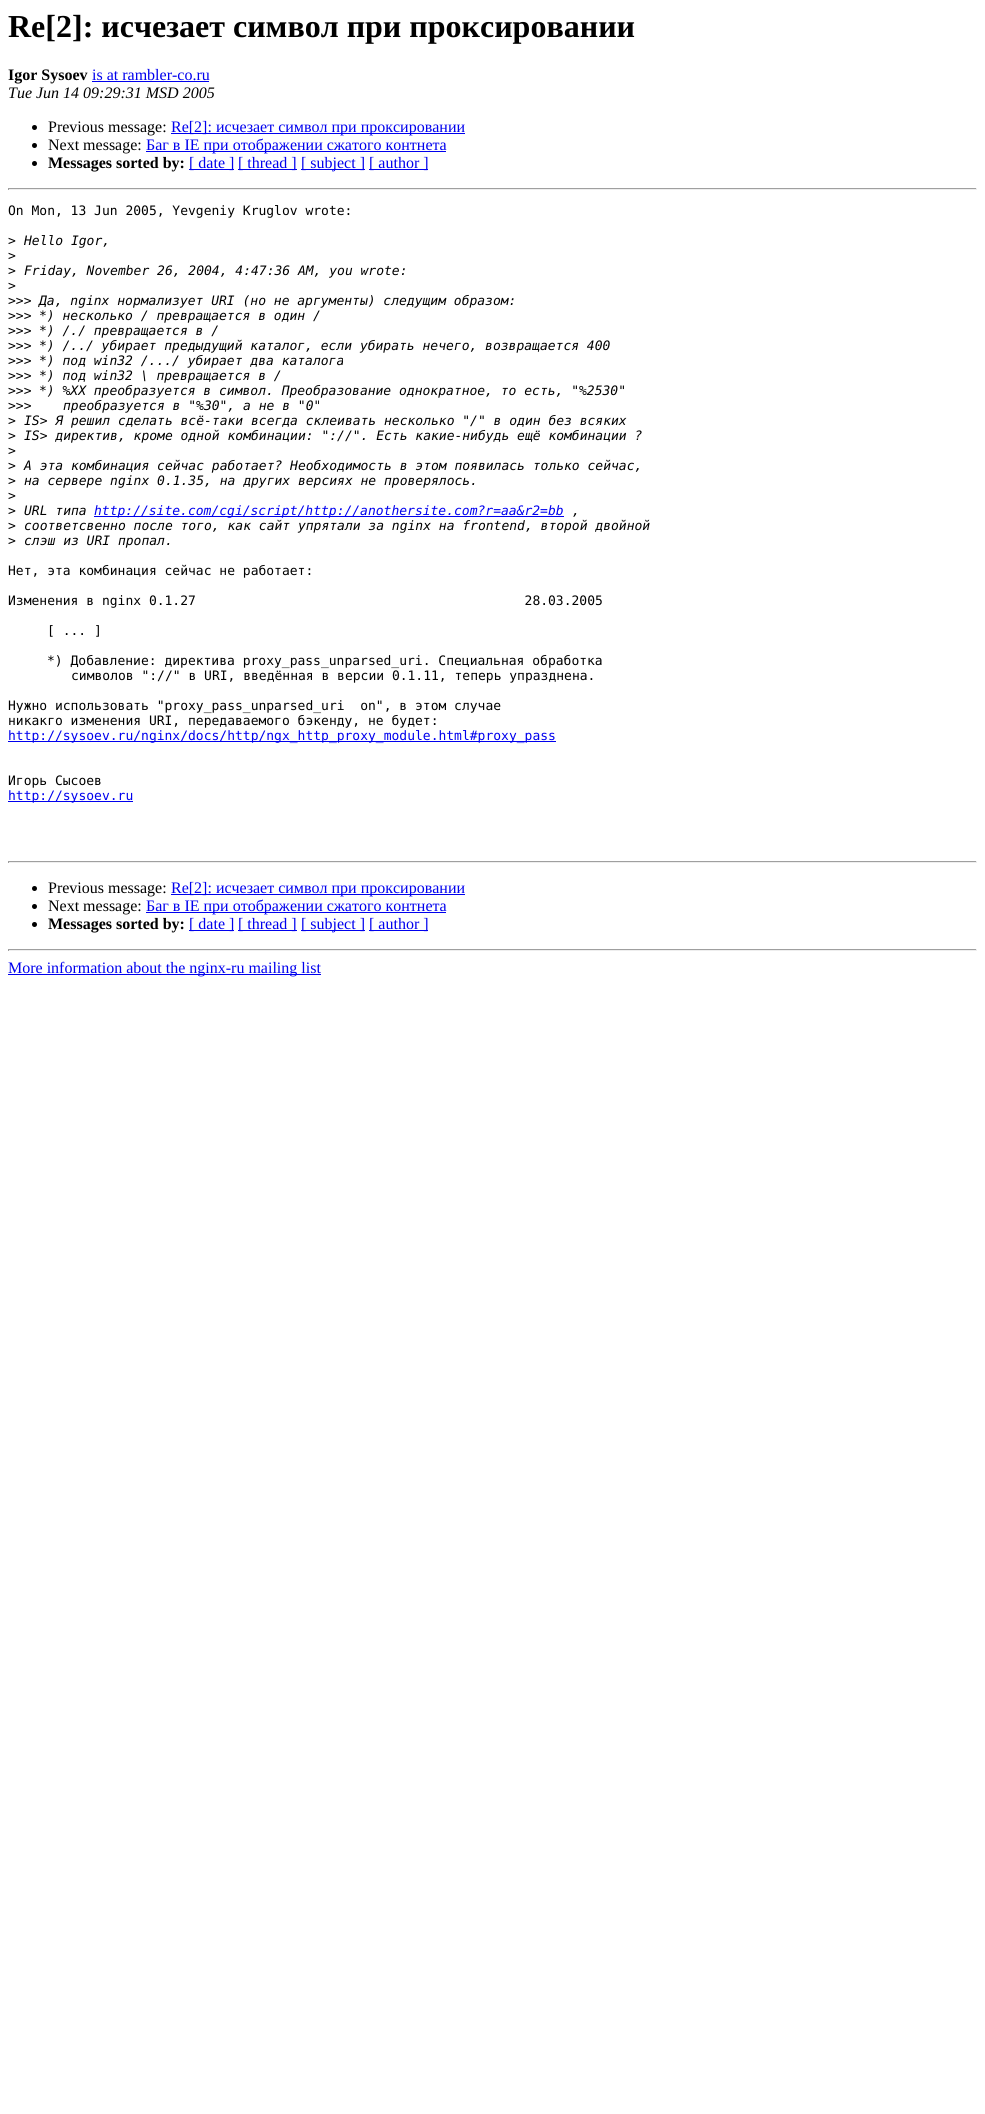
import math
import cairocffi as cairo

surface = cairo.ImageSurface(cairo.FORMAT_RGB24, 985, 2114)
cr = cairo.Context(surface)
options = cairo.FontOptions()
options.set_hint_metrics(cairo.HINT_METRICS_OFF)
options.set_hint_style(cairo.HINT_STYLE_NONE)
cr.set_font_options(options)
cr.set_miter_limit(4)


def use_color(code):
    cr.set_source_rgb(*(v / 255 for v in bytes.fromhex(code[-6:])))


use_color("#ffffff")
cr.paint()
cr.select_font_face("Liberation Serif", cairo.FONT_SLANT_NORMAL, cairo.FONT_WEIGHT_BOLD)
cr.set_font_size(32)
use_color("#000000")
cr.move_to(8, 37)
cr.show_text("Re[2]: исчезает символ при проксировании")
cr.set_font_size(16)
cr.move_to(8, 80)
cr.show_text("Igor Sysoev")
cr.select_font_face("Liberation Serif")
use_color("#0000ee")
cr.move_to(92, 80)
cr.show_text("is at rambler-co.ru")
cr.rectangle(92, 81, 117, 1)
cr.fill()
cr.select_font_face("Liberation Serif", cairo.FONT_SLANT_ITALIC)
use_color("#000000")
cr.move_to(8, 98)
cr.show_text("Tue Jun 14 09:29:31 MSD 2005")
cr.new_path()
cr.arc(34.5, 127.5, 2.5, 0, 2 * math.pi)
cr.fill()
cr.select_font_face("Liberation Serif")
cr.move_to(48, 132)
cr.show_text("Previous message:")
use_color("#0000ee")
cr.rectangle(171, 133, 294, 1)
cr.fill()
cr.move_to(171, 132)
cr.show_text("Re[2]: исчезает символ при проксировании")
use_color("#000000")
cr.new_path()
cr.arc(34.5, 145.5, 2.5, 0, 2 * math.pi)
cr.fill()
cr.move_to(48, 150)
cr.show_text("Next message:")
use_color("#0000ee")
cr.rectangle(146, 151, 300, 1)
cr.fill()
cr.move_to(146, 150)
cr.show_text("Баг в IE при отображении сжатого контнета")
use_color("#000000")
cr.new_path()
cr.arc(34.5, 163.5, 2.5, 0, 2 * math.pi)
cr.fill()
cr.select_font_face("Liberation Serif", cairo.FONT_SLANT_NORMAL, cairo.FONT_WEIGHT_BOLD)
cr.move_to(48, 168)
cr.show_text("Messages sorted by:")
use_color("#0000ee")
cr.rectangle(189, 169, 45, 1)
cr.fill()
cr.select_font_face("Liberation Serif")
cr.move_to(189, 168)
cr.show_text("[ date ]")
cr.rectangle(238, 169, 59, 1)
cr.fill()
cr.move_to(238, 168)
cr.show_text("[ thread ]")
cr.rectangle(301, 169, 64, 1)
cr.fill()
cr.move_to(301, 168)
cr.show_text("[ subject ]")
cr.rectangle(369, 169, 59, 1)
cr.fill()
cr.move_to(369, 168)
cr.show_text("[ author ]")
use_color("#9f9f9f")
cr.rectangle(8, 188, 969, 1)
cr.fill()
use_color("#eeeeee")
cr.rectangle(976, 188, 1, 2)
cr.fill()
cr.rectangle(8, 189, 969, 1)
cr.fill()
use_color("#9f9f9f")
cr.rectangle(8, 188, 1, 2)
cr.fill()
cr.select_font_face("DejaVu Sans Mono")
cr.set_font_size(13)
use_color("#000000")
cr.move_to(8, 215)
cr.show_text("On Mon, 13 Jun 2005, Yevgeniy Kruglov wrote:")
cr.move_to(8, 245)
cr.show_text(">")
cr.select_font_face("DejaVu Sans Mono", cairo.FONT_SLANT_ITALIC)
cr.move_to(24, 245)
cr.show_text("Hello Igor,")
cr.select_font_face("DejaVu Sans Mono")
cr.move_to(8, 260)
cr.show_text(">")
cr.move_to(8, 275)
cr.show_text(">")
cr.select_font_face("DejaVu Sans Mono", cairo.FONT_SLANT_ITALIC)
cr.move_to(24, 275)
cr.show_text("Friday, November 26, 2004, 4:47:36 AM, you wrote:")
cr.select_font_face("DejaVu Sans Mono")
cr.move_to(8, 290)
cr.show_text(">")
cr.move_to(8, 305)
cr.show_text(">>>")
cr.select_font_face("DejaVu Sans Mono", cairo.FONT_SLANT_ITALIC)
cr.move_to(39, 305)
cr.show_text("Да, nginx нормализует URI (но не аргументы) следущим образом:")
cr.select_font_face("DejaVu Sans Mono")
cr.move_to(8, 320)
cr.show_text(">>>")
cr.select_font_face("DejaVu Sans Mono", cairo.FONT_SLANT_ITALIC)
cr.move_to(39, 320)
cr.show_text("*) несколько / превращается в один /")
cr.select_font_face("DejaVu Sans Mono")
cr.move_to(8, 335)
cr.show_text(">>>")
cr.select_font_face("DejaVu Sans Mono", cairo.FONT_SLANT_ITALIC)
cr.move_to(39, 335)
cr.show_text("*) /./ превращается в /")
cr.select_font_face("DejaVu Sans Mono")
cr.move_to(8, 350)
cr.show_text(">>>")
cr.select_font_face("DejaVu Sans Mono", cairo.FONT_SLANT_ITALIC)
cr.move_to(39, 350)
cr.show_text("*) /../ убирает предыдущий каталог, если убирать нечего, возвращается 400")
cr.select_font_face("DejaVu Sans Mono")
cr.move_to(8, 365)
cr.show_text(">>>")
cr.select_font_face("DejaVu Sans Mono", cairo.FONT_SLANT_ITALIC)
cr.move_to(39, 365)
cr.show_text("*) под win32 /.../ убирает два каталога")
cr.select_font_face("DejaVu Sans Mono")
cr.move_to(8, 380)
cr.show_text(">>>")
cr.select_font_face("DejaVu Sans Mono", cairo.FONT_SLANT_ITALIC)
cr.move_to(39, 380)
cr.show_text("*) под win32 \\ превращается в /")
cr.select_font_face("DejaVu Sans Mono")
cr.move_to(8, 395)
cr.show_text(">>>")
cr.select_font_face("DejaVu Sans Mono", cairo.FONT_SLANT_ITALIC)
cr.move_to(39, 395)
cr.show_text("*) %XX преобразуется в символ. Преобразование однократное, то есть, \"%2530\"")
cr.select_font_face("DejaVu Sans Mono")
cr.move_to(8, 410)
cr.show_text(">>>")
cr.select_font_face("DejaVu Sans Mono", cairo.FONT_SLANT_ITALIC)
cr.move_to(63, 410)
cr.show_text("преобразуется в \"%30\", а не в \"0\"")
cr.select_font_face("DejaVu Sans Mono")
cr.move_to(8, 425)
cr.show_text(">")
cr.select_font_face("DejaVu Sans Mono", cairo.FONT_SLANT_ITALIC)
cr.move_to(24, 425)
cr.show_text("IS> Я решил сделать всё-таки всегда склеивать несколько \"/\" в один без всяких")
cr.select_font_face("DejaVu Sans Mono")
cr.move_to(8, 440)
cr.show_text(">")
cr.select_font_face("DejaVu Sans Mono", cairo.FONT_SLANT_ITALIC)
cr.move_to(24, 440)
cr.show_text("IS> директив, кроме одной комбинации: \"://\". Есть какие-нибудь ещё комбинации ?")
cr.select_font_face("DejaVu Sans Mono")
cr.move_to(8, 455)
cr.show_text(">")
cr.move_to(8, 470)
cr.show_text(">")
cr.select_font_face("DejaVu Sans Mono", cairo.FONT_SLANT_ITALIC)
cr.move_to(24, 470)
cr.show_text("А эта комбинация сейчас работает? Необходимость в этом появилась только сейчас,")
cr.select_font_face("DejaVu Sans Mono")
cr.move_to(8, 485)
cr.show_text(">")
cr.select_font_face("DejaVu Sans Mono", cairo.FONT_SLANT_ITALIC)
cr.move_to(24, 485)
cr.show_text("на сервере nginx 0.1.35, на других версиях не проверялось.")
cr.select_font_face("DejaVu Sans Mono")
cr.move_to(8, 500)
cr.show_text(">")
cr.move_to(8, 515)
cr.show_text(">")
cr.select_font_face("DejaVu Sans Mono", cairo.FONT_SLANT_ITALIC)
cr.move_to(24, 515)
cr.show_text("URL типа")
use_color("#0000ee")
cr.rectangle(94, 516, 470, 1)
cr.fill()
cr.move_to(94, 515)
cr.show_text("http://site.com/cgi/script/http://anothersite.com?r=aa&r2=bb")
use_color("#000000")
cr.move_to(572, 515)
cr.show_text(",")
cr.select_font_face("DejaVu Sans Mono")
cr.move_to(8, 530)
cr.show_text(">")
cr.select_font_face("DejaVu Sans Mono", cairo.FONT_SLANT_ITALIC)
cr.move_to(24, 530)
cr.show_text("соответсвенно после того, как сайт упрятали за nginx на frontend, второй двойной")
cr.select_font_face("DejaVu Sans Mono")
cr.move_to(8, 545)
cr.show_text(">")
cr.select_font_face("DejaVu Sans Mono", cairo.FONT_SLANT_ITALIC)
cr.move_to(24, 545)
cr.show_text("слэш из URI пропал.")
cr.select_font_face("DejaVu Sans Mono")
cr.move_to(8, 575)
cr.show_text("Нет, эта комбинация сейчас не работает:")
cr.move_to(8, 605)
cr.show_text("Изменения в nginx 0.1.27                                          28.03.2005")
cr.move_to(47, 635)
cr.show_text("[ ... ]")
cr.move_to(47, 665)
cr.show_text("*) Добавление: директива proxy_pass_unparsed_uri. Специальная обработка")
cr.move_to(71, 680)
cr.show_text("символов \"://\" в URI, введённая в версии 0.1.11, теперь упразднена.")
cr.move_to(8, 710)
cr.show_text("Нужно использовать \"proxy_pass_unparsed_uri  on\", в этом случае")
cr.move_to(8, 725)
cr.show_text("никакго изменения URI, передаваемого бэкенду, не будет:")
use_color("#0000ee")
cr.rectangle(8, 741, 548, 1)
cr.fill()
cr.move_to(8, 740)
cr.show_text("http://sysoev.ru/nginx/docs/http/ngx_http_proxy_module.html#proxy_pass")
use_color("#000000")
cr.move_to(8, 785)
cr.show_text("Игорь Сысоев")
use_color("#0000ee")
cr.rectangle(8, 801, 125, 1)
cr.fill()
cr.move_to(8, 800)
cr.show_text("http://sysoev.ru")
use_color("#9f9f9f")
cr.rectangle(8, 861, 969, 1)
cr.fill()
use_color("#eeeeee")
cr.rectangle(976, 861, 1, 2)
cr.fill()
cr.rectangle(8, 862, 969, 1)
cr.fill()
use_color("#9f9f9f")
cr.rectangle(8, 861, 1, 2)
cr.fill()
use_color("#000000")
cr.arc(34.5, 888.5, 2.5, 0, 2 * math.pi)
cr.fill()
cr.select_font_face("Liberation Serif")
cr.set_font_size(16)
cr.move_to(48, 893)
cr.show_text("Previous message:")
use_color("#0000ee")
cr.rectangle(171, 894, 294, 1)
cr.fill()
cr.move_to(171, 893)
cr.show_text("Re[2]: исчезает символ при проксировании")
use_color("#000000")
cr.new_path()
cr.arc(34.5, 906.5, 2.5, 0, 2 * math.pi)
cr.fill()
cr.move_to(48, 911)
cr.show_text("Next message:")
use_color("#0000ee")
cr.rectangle(146, 912, 300, 1)
cr.fill()
cr.move_to(146, 911)
cr.show_text("Баг в IE при отображении сжатого контнета")
use_color("#000000")
cr.new_path()
cr.arc(34.5, 924.5, 2.5, 0, 2 * math.pi)
cr.fill()
cr.select_font_face("Liberation Serif", cairo.FONT_SLANT_NORMAL, cairo.FONT_WEIGHT_BOLD)
cr.move_to(48, 929)
cr.show_text("Messages sorted by:")
use_color("#0000ee")
cr.rectangle(189, 930, 45, 1)
cr.fill()
cr.select_font_face("Liberation Serif")
cr.move_to(189, 929)
cr.show_text("[ date ]")
cr.rectangle(238, 930, 59, 1)
cr.fill()
cr.move_to(238, 929)
cr.show_text("[ thread ]")
cr.rectangle(301, 930, 64, 1)
cr.fill()
cr.move_to(301, 929)
cr.show_text("[ subject ]")
cr.rectangle(369, 930, 59, 1)
cr.fill()
cr.move_to(369, 929)
cr.show_text("[ author ]")
use_color("#9f9f9f")
cr.rectangle(8, 949, 969, 1)
cr.fill()
use_color("#eeeeee")
cr.rectangle(976, 949, 1, 2)
cr.fill()
cr.rectangle(8, 950, 969, 1)
cr.fill()
use_color("#9f9f9f")
cr.rectangle(8, 949, 1, 2)
cr.fill()
use_color("#0000ee")
cr.rectangle(8, 974, 313, 1)
cr.fill()
cr.move_to(8, 973)
cr.show_text("More information about the nginx-ru mailing list")
surface.write_to_png("result.png")
